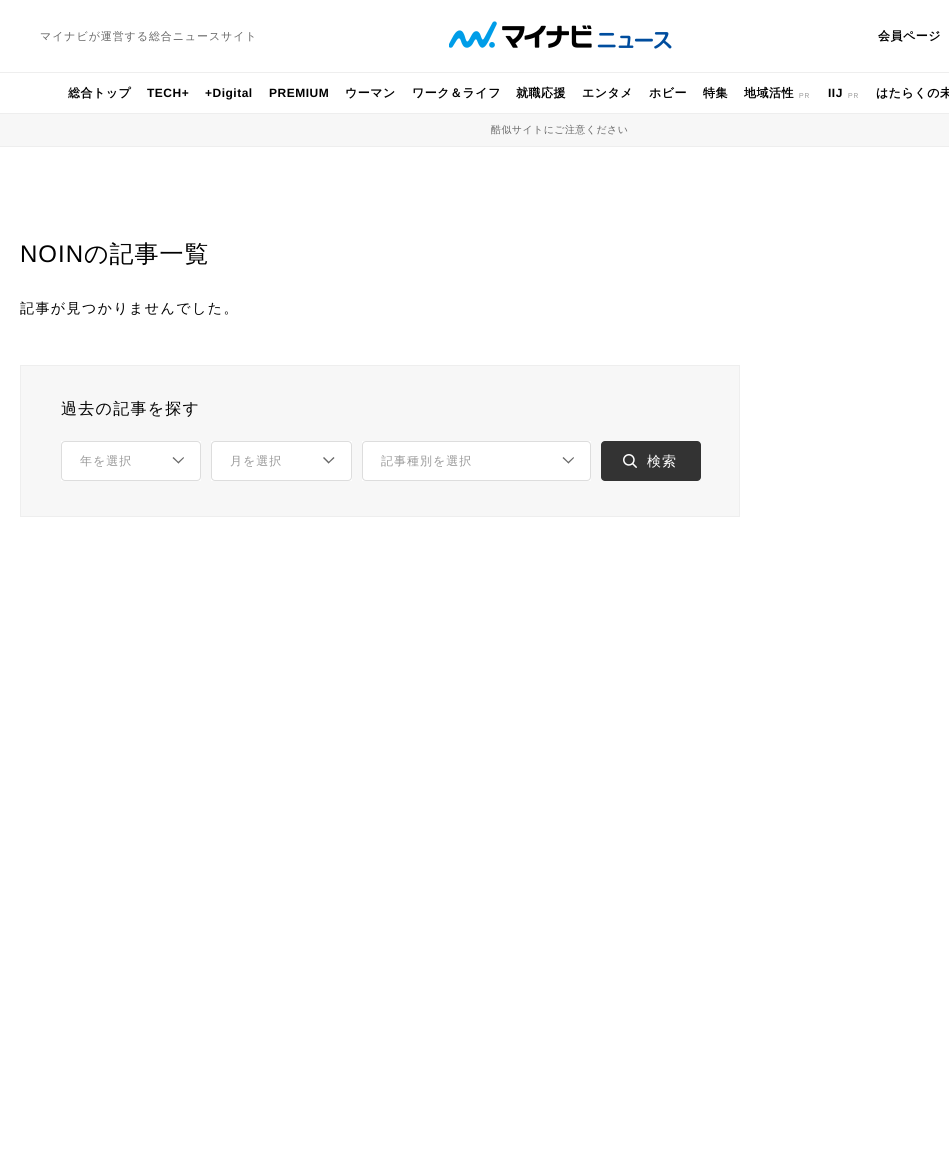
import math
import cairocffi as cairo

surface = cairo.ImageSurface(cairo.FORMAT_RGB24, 949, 1150)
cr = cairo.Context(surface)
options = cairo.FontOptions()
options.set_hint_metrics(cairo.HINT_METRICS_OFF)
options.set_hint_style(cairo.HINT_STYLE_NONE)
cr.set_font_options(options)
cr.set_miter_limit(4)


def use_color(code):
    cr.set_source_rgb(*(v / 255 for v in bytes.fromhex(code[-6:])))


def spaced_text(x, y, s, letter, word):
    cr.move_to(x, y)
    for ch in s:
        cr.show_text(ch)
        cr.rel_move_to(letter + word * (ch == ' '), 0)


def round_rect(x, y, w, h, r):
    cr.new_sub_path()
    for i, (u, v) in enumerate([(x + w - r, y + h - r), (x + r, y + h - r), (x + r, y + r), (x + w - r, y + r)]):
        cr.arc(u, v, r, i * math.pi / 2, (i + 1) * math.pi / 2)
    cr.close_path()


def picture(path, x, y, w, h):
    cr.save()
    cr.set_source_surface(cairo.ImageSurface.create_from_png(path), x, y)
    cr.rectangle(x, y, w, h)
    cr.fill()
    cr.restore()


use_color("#ffffff")
cr.paint()
use_color("#eeeeee")
cr.rectangle(0, 72, 949, 1)
cr.fill()
cr.select_font_face("WenQuanYi Zen Hei Medium")
cr.set_font_size(11)
use_color("#666666")
spaced_text(40, 40, "マイナビが運営する総合ニュースサイト", 0.9, 0)
picture("img1.png", 449, 21, 223, 28)
cr.select_font_face("WenQuanYi Zen Hei", cairo.FONT_SLANT_NORMAL, cairo.FONT_WEIGHT_BOLD)
cr.set_font_size(12)
use_color("#000000")
spaced_text(878, 40, "会員ページ", 0.5, 0)
use_color("#eeeeee")
cr.rectangle(0, 113, 949, 1)
cr.fill()
use_color("#000000")
spaced_text(68, 97, "総合トップ", 0.5, 0)
cr.select_font_face("Liberation Sans", cairo.FONT_SLANT_NORMAL, cairo.FONT_WEIGHT_BOLD)
spaced_text(147, 97, "TECH+", 0.5, 0)
spaced_text(205, 97, "+Digital", 0.5, 0)
spaced_text(269, 97, "PREMIUM", 0.5, 0)
cr.select_font_face("WenQuanYi Zen Hei", cairo.FONT_SLANT_NORMAL, cairo.FONT_WEIGHT_BOLD)
spaced_text(345, 97, "ウーマン", 0.5, 0)
spaced_text(412, 97, "ワーク＆ライフ", 0.5, 0)
spaced_text(516, 97, "就職応援", 0.5, 0)
spaced_text(582, 97, "エンタメ", 0.5, 0)
spaced_text(649, 97, "ホビー", 0.5, 0)
spaced_text(703, 97, "特集", 0.5, 0)
spaced_text(744, 97, "地域活性", 0.5, 0)
cr.select_font_face("Red Hat Display Medium")
cr.set_font_size(7)
use_color("#999999")
spaced_text(799, 98, "PR", 1, 0)
cr.select_font_face("Liberation Sans", cairo.FONT_SLANT_NORMAL, cairo.FONT_WEIGHT_BOLD)
cr.set_font_size(12)
use_color("#000000")
spaced_text(828, 97, "IIJ", 0.5, 0)
cr.select_font_face("Red Hat Display Medium")
cr.set_font_size(7)
use_color("#999999")
spaced_text(848, 98, "PR", 1, 0)
cr.select_font_face("WenQuanYi Zen Hei", cairo.FONT_SLANT_NORMAL, cairo.FONT_WEIGHT_BOLD)
cr.set_font_size(12)
use_color("#000000")
spaced_text(876, 97, "はたらくの未", 0.5, 0)
gradient = cairo.LinearGradient(72, 93, 60, 93)
gradient.add_color_stop_rgba(0, 1, 1, 1, 0)
gradient.add_color_stop_rgba(1, 1, 1, 1, 1)
cr.set_source(gradient)
cr.rectangle(68, 87, 4, 12)
cr.fill()
use_color("#f7f7f7")
cr.rectangle(0, 114, 949, 32)
cr.fill()
use_color("#eeeeee")
cr.rectangle(0, 146, 949, 1)
cr.fill()
cr.select_font_face("WenQuanYi Zen Hei Medium")
cr.set_font_size(10)
use_color("#666666")
spaced_text(491, 133, "酷似サイトにご注意ください", 0.4, 0)
cr.select_font_face("Liberation Sans")
cr.set_font_size(24)
use_color("#000000")
spaced_text(20, 262, "NOIN", 1, 0)
cr.select_font_face("WenQuanYi Zen Hei Medium")
spaced_text(84, 262, "の記事一覧", 1, 0)
cr.set_font_size(14)
spaced_text(20, 313, "記事が見つかりませんでした。", 1.4, 0)
use_color("#f7f7f7")
cr.rectangle(20.5, 365.5, 719, 151)
cr.fill_preserve()
use_color("#eeeeee")
cr.set_line_width(1)
cr.stroke()
cr.set_font_size(16)
use_color("#000000")
spaced_text(61, 414, "過去の記事を探す", 1.25, 0)
use_color("#ffffff")
cr.rectangle(61, 441, 140, 40)
cr.fill()
round_rect(61.5, 441.5, 139, 39, 3.5)
use_color("#dddddd")
cr.stroke()
cr.set_font_size(12)
use_color("#999999")
spaced_text(80, 465, "年を選択", 1, 0)
use_color("#666666")
cr.new_path()
cr.move_to(184, 458)
cr.line_to(178.5, 463.5)
cr.line_to(177.5, 462.5)
cr.line_to(183.5, 457)
cr.close_path()
cr.fill()
cr.new_path()
cr.move_to(179, 462.5)
cr.line_to(178.5, 463.5)
cr.line_to(172.5, 458)
cr.line_to(173.5, 457)
cr.close_path()
cr.fill()
use_color("#ffffff")
cr.rectangle(211, 441, 141, 40)
cr.fill()
round_rect(211.5, 441.5, 140, 39, 3.5)
use_color("#dddddd")
cr.stroke()
use_color("#999999")
spaced_text(230, 465, "月を選択", 1, 0)
use_color("#666666")
cr.new_path()
cr.move_to(334.5, 458)
cr.line_to(328.5, 463.5)
cr.line_to(328, 462.5)
cr.line_to(333.5, 457)
cr.close_path()
cr.fill()
cr.new_path()
cr.move_to(329.5, 462.5)
cr.line_to(328.5, 463.5)
cr.line_to(323, 458)
cr.line_to(324, 457)
cr.close_path()
cr.fill()
use_color("#ffffff")
cr.rectangle(362, 441, 229, 40)
cr.fill()
round_rect(362.5, 441.5, 228, 39, 3.5)
use_color("#dddddd")
cr.stroke()
use_color("#999999")
spaced_text(381, 465, "記事種別を選択", 1, 0)
use_color("#666666")
cr.new_path()
cr.move_to(574, 458)
cr.line_to(568.5, 463.5)
cr.line_to(567.5, 462.5)
cr.line_to(573.5, 457)
cr.close_path()
cr.fill()
cr.new_path()
cr.move_to(569, 462.5)
cr.line_to(568.5, 463.5)
cr.line_to(562.5, 458)
cr.line_to(563.5, 457)
cr.close_path()
cr.fill()
use_color("#333333")
round_rect(601, 441, 100, 40, 4)
cr.fill()
picture("img2.png", 623, 454, 14, 14)
cr.set_font_size(14)
use_color("#ffffff")
spaced_text(647, 466, "検索", 1, 0)
surface.write_to_png("result.png")
